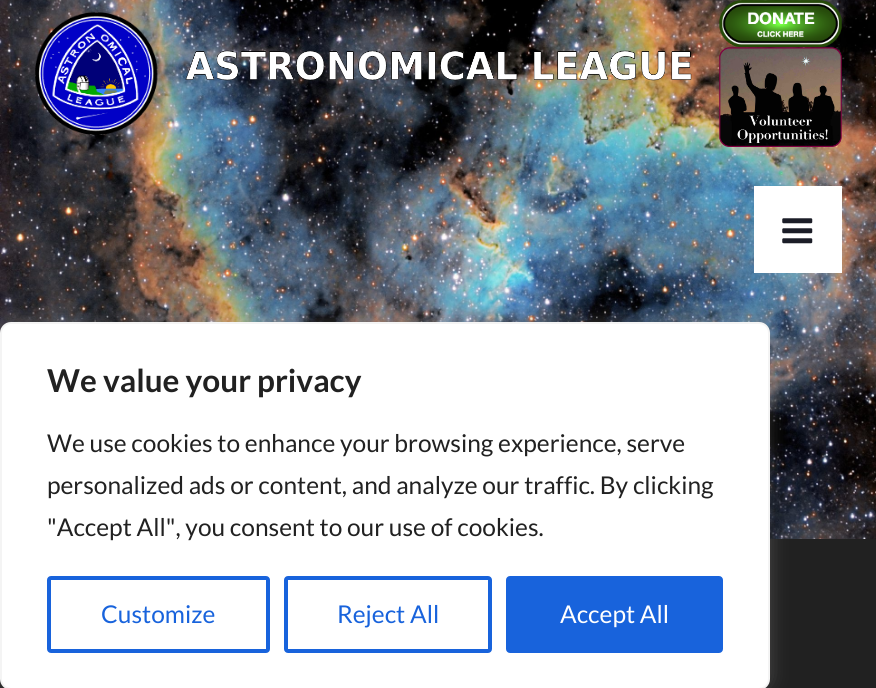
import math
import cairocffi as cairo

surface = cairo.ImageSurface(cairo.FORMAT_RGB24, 876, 688)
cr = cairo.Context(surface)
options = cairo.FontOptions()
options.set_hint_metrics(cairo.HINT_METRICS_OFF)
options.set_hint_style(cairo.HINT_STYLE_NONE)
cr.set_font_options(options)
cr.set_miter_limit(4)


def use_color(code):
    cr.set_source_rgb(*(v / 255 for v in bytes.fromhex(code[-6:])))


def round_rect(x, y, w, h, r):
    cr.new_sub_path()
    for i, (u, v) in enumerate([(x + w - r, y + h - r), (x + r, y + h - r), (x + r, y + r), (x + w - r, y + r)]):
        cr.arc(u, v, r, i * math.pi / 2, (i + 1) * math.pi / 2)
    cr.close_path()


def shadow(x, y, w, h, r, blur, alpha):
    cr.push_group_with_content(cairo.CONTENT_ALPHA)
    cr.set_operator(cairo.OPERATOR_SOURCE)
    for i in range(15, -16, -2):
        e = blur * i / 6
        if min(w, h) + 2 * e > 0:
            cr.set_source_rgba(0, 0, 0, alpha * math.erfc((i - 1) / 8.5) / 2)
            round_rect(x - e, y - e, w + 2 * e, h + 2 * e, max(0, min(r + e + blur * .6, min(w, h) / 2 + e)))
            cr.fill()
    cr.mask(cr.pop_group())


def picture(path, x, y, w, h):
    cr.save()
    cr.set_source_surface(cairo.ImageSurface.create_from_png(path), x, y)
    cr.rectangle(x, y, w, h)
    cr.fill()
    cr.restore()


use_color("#212121")
cr.paint()
picture("img1.png", 0, 0, 876, 539)
picture("img2.png", 35, 12, 123, 123)
picture("img3.png", 185, 50, 507, 31)
picture("img4.png", 719, 0, 123, 48)
picture("img5.png", 719, 47, 123, 100)
use_color("#ffffff")
cr.rectangle(754, 186, 88, 87)
cr.fill()
picture("img6.png", 782, 218, 31, 26)
use_color("#acabab")
shadow(0, 320, 770, 368, 11, 9, 0.3)
use_color("#ffffff")
round_rect(1, 323, 768, 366, 10)
cr.fill_preserve()
use_color("#f4f4f4")
cr.stroke()
cr.select_font_face("Lato", cairo.FONT_SLANT_NORMAL, cairo.FONT_WEIGHT_BOLD)
cr.set_font_size(31.5)
use_color("#212121")
cr.move_to(47, 392)
cr.show_text("We value your privacy")
cr.select_font_face("Lato")
cr.set_font_size(24.5)
cr.move_to(47, 452)
cr.show_text("We use cookies to enhance your browsing experience, serve")
cr.move_to(47, 494)
cr.show_text("personalized ads or content, and analyze our traffic. By clicking")
cr.move_to(47, 536)
cr.show_text("\"Accept All\", you consent to our use of cookies.")
round_rect(49, 578, 219, 73, 2)
use_color("#1863dc")
cr.set_line_width(4)
cr.stroke()
cr.move_to(101, 623)
cr.show_text("Customize")
round_rect(286, 578, 204, 73, 2)
cr.stroke()
cr.move_to(337, 623)
cr.show_text("Reject All")
round_rect(508, 578, 213, 73, 2)
cr.fill_preserve()
cr.stroke()
use_color("#ffffff")
cr.move_to(560, 623)
cr.show_text("Accept All")
surface.write_to_png("result.png")
